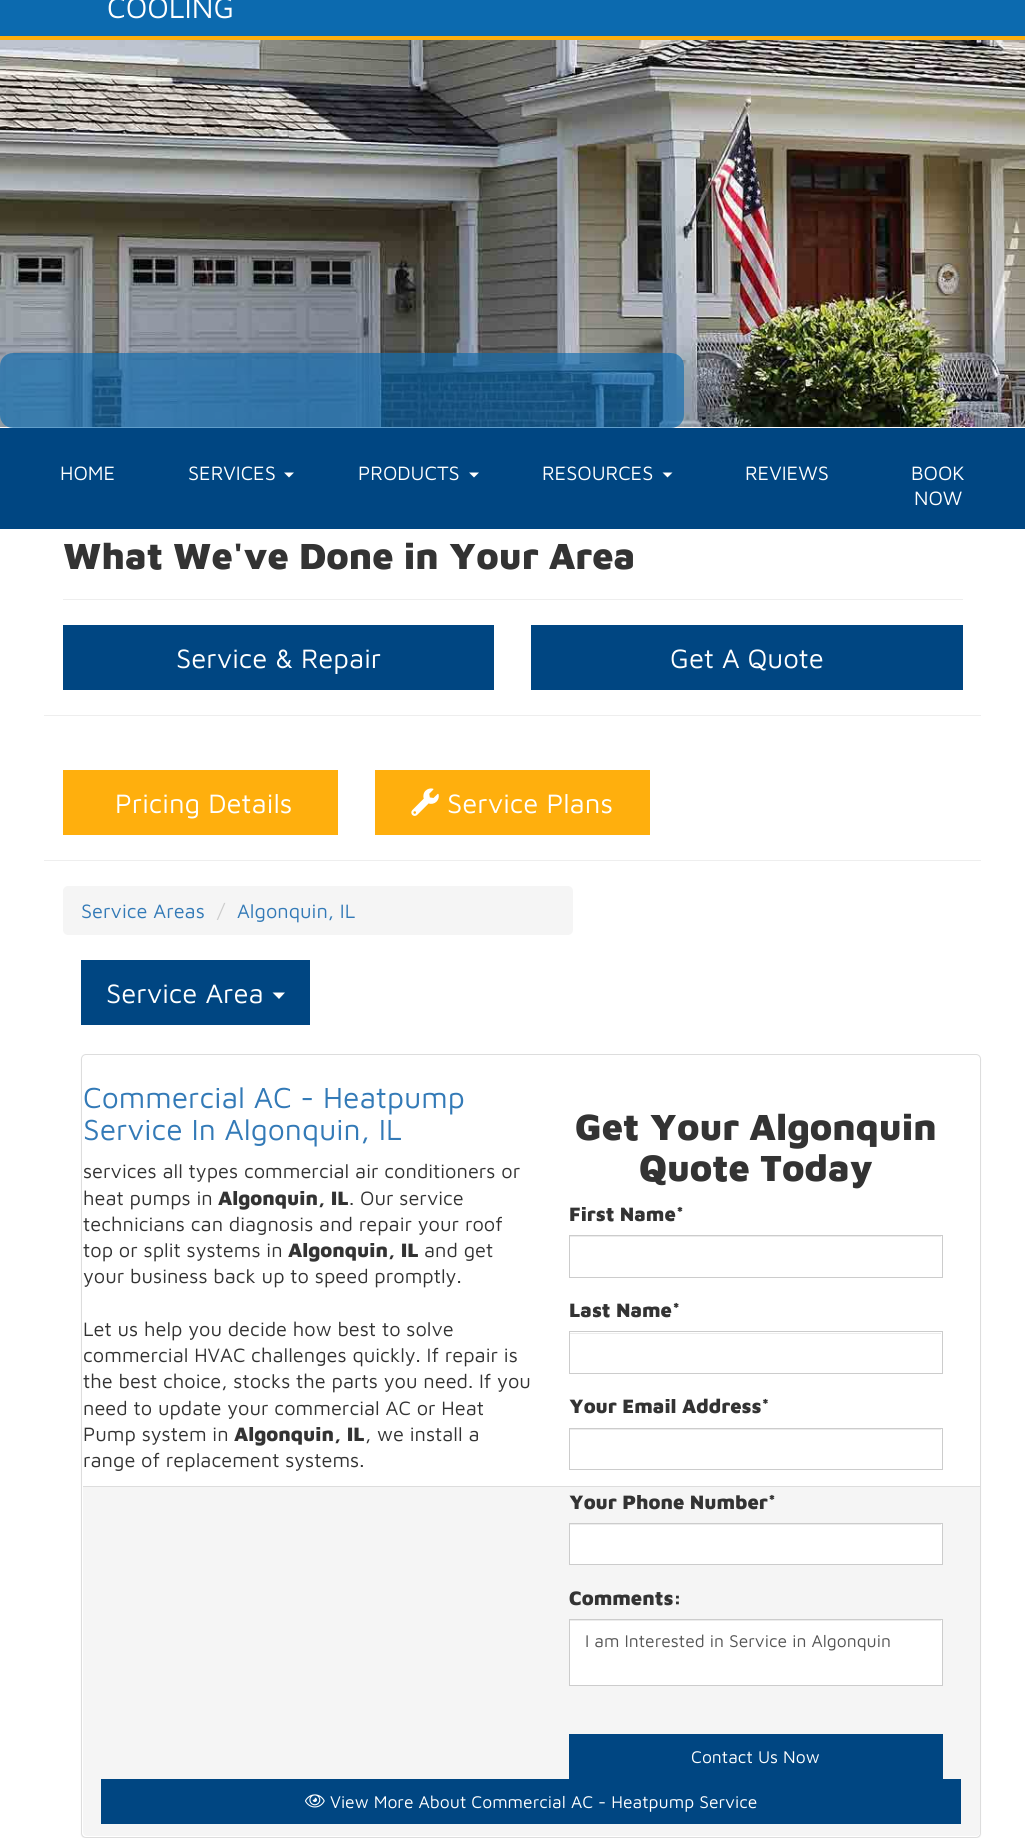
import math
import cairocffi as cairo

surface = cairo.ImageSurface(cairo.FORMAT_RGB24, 1025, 1838)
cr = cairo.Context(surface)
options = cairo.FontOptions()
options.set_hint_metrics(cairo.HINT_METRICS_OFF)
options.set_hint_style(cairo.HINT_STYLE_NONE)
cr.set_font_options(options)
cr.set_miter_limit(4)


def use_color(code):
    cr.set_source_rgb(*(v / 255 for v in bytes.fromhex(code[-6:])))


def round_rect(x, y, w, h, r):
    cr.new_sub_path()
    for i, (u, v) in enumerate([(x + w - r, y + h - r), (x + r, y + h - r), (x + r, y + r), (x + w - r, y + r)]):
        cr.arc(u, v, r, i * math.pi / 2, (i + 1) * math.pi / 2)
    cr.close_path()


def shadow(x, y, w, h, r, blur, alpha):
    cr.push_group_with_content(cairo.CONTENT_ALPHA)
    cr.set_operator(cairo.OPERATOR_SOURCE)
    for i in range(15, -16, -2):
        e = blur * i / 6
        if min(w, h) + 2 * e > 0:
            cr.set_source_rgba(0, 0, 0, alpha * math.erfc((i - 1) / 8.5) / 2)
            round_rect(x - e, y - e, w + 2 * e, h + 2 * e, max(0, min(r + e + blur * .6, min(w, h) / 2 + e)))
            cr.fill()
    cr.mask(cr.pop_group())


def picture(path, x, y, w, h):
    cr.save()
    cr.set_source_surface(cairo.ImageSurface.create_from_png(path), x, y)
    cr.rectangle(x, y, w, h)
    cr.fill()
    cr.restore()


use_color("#ffffff")
cr.paint()
use_color("#0c6aaf")
cr.rectangle(0, 0, 1025, 36)
cr.fill()
use_color("#ffaf0d")
cr.rectangle(0, 36, 1025, 4)
cr.fill()
cr.select_font_face("Maven Pro")
cr.set_font_size(30)
use_color("#ffffff")
cr.move_to(107, 18)
cr.show_text("COOLING")
picture("img1.png", 0, 40, 1025, 387)
cr.set_source_rgba(0.047, 0.416, 0.686, 0.65)
round_rect(0, 353, 684, 75, 13)
cr.fill()
use_color("#004682")
cr.rectangle(0, 428, 1025, 101)
cr.fill()
cr.set_font_size(20)
use_color("#ffffff")
cr.move_to(60, 480)
cr.show_text("HOME")
cr.move_to(188, 480)
cr.show_text("SERVICES")
cr.new_path()
cr.move_to(284, 472.5)
cr.line_to(294, 472.5)
cr.line_to(289, 477.5)
cr.close_path()
cr.fill()
cr.move_to(358, 480)
cr.show_text("PRODUCTS")
cr.new_path()
cr.move_to(469, 472.5)
cr.line_to(479, 472.5)
cr.line_to(474, 477.5)
cr.close_path()
cr.fill()
cr.move_to(542, 480)
cr.show_text("RESOURCES")
cr.new_path()
cr.move_to(662.5, 472.5)
cr.line_to(672.5, 472.5)
cr.line_to(667.5, 477.5)
cr.close_path()
cr.fill()
cr.move_to(745, 480)
cr.show_text("REVIEWS")
cr.move_to(911, 480)
cr.show_text("BOOK")
cr.move_to(914, 505)
cr.show_text("NOW")
use_color("#eeeeee")
cr.rectangle(63, 599, 900, 1)
cr.fill()
cr.select_font_face("Maven Pro Black")
cr.set_font_size(37.5)
use_color("#333333")
cr.move_to(63, 569)
cr.show_text("What We've Done in Your Area")
use_color("#004682")
cr.rectangle(63, 625, 431, 65)
cr.fill()
cr.select_font_face("Maven Pro")
cr.set_font_size(27.5)
use_color("#ffffff")
cr.move_to(176, 668)
cr.show_text("Service & Repair")
use_color("#004682")
cr.rectangle(531, 625, 432, 65)
cr.fill()
use_color("#ffffff")
cr.move_to(670, 668)
cr.show_text("Get A Quote")
use_color("#eeeeee")
cr.rectangle(44, 715, 937, 1)
cr.fill()
use_color("#ffaf0d")
cr.rectangle(63, 770, 275, 65)
cr.fill()
use_color("#ffffff")
cr.move_to(115, 813)
cr.show_text("Pricing Details")
use_color("#ffaf0d")
cr.rectangle(375, 770, 275, 65)
cr.fill()
picture("img2.png", 411, 788, 28, 28)
use_color("#ffffff")
cr.move_to(447, 813)
cr.show_text("Service Plans")
use_color("#eeeeee")
cr.rectangle(44, 860, 937, 1)
cr.fill()
use_color("#f5f5f5")
round_rect(63, 886, 510, 49, 5)
cr.fill()
cr.set_font_size(20)
use_color("#337ab7")
cr.move_to(81, 918)
cr.show_text("Service Areas")
use_color("#cccccc")
cr.move_to(217, 918)
cr.show_text("/")
use_color("#337ab7")
cr.move_to(237, 918)
cr.show_text("Algonquin, IL")
use_color("#004682")
cr.rectangle(81, 960, 229, 65)
cr.fill()
cr.set_font_size(27.5)
use_color("#ffffff")
cr.move_to(106, 1003)
cr.show_text("Service Area")
cr.new_path()
cr.move_to(272.5, 992.5)
cr.line_to(285, 992.5)
cr.line_to(279, 999)
cr.close_path()
cr.fill()
use_color("#000000")
shadow(81, 1055, 900, 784, 5, 0.5, 0.05)
use_color("#ffffff")
round_rect(81.5, 1054.5, 899, 783, 4.5)
cr.fill_preserve()
use_color("#dddddd")
cr.set_line_width(1)
cr.stroke()
cr.set_font_size(30)
use_color("#337ab7")
cr.move_to(83, 1108)
cr.show_text("Commercial AC - Heatpump")
cr.move_to(83, 1140)
cr.show_text("Service In Algonquin, IL")
cr.select_font_face("Maven Pro Black")
cr.set_font_size(37.5)
use_color("#333333")
cr.move_to(575, 1140)
cr.show_text("Get Your Algonquin")
cr.move_to(639, 1181)
cr.show_text("Quote Today")
cr.set_font_size(20)
cr.move_to(569, 1221)
cr.show_text("First Name*")
use_color("#ececec")
cr.rectangle(570, 1236, 371, 1)
cr.fill()
cr.rectangle(569.5, 1235.5, 373, 42)
use_color("#cccccc")
cr.stroke()
use_color("#333333")
cr.move_to(569, 1317)
cr.show_text("Last Name*")
use_color("#ececec")
cr.rectangle(570, 1333, 371, 1)
cr.fill()
cr.rectangle(569.5, 1331.5, 373, 42)
use_color("#cccccc")
cr.stroke()
use_color("#333333")
cr.move_to(569, 1413)
cr.show_text("Your Email Address*")
use_color("#ececec")
cr.rectangle(570, 1429, 371, 1)
cr.fill()
cr.rectangle(569.5, 1428.5, 373, 41)
use_color("#cccccc")
cr.stroke()
use_color("#f5f5f5")
cr.new_path()
cr.move_to(83, 1486)
cr.line_to(980, 1486)
cr.line_to(980, 1832)
cr.curve_to(980, 1834, 978, 1836, 976, 1836)
cr.line_to(87, 1836)
cr.curve_to(85, 1836, 83, 1834, 83, 1832)
cr.close_path()
cr.fill()
use_color("#333333")
cr.move_to(569, 1509)
cr.show_text("Your Phone Number*")
use_color("#ffffff")
cr.rectangle(570, 1524, 372, 40)
cr.fill()
use_color("#ececec")
cr.rectangle(570, 1524, 371, 1)
cr.fill()
cr.rectangle(569.5, 1523.5, 373, 41)
use_color("#cccccc")
cr.stroke()
use_color("#333333")
cr.move_to(569, 1605)
cr.show_text("Comments:")
use_color("#ffffff")
cr.rectangle(570, 1620, 372, 65)
cr.fill()
use_color("#ececec")
cr.rectangle(570, 1620, 371, 1)
cr.fill()
cr.rectangle(569.5, 1619.5, 373, 66)
use_color("#cccccc")
cr.stroke()
cr.select_font_face("Maven Pro")
cr.set_font_size(17.5)
use_color("#555555")
cr.move_to(585, 1647)
cr.show_text("I am Interested in Service in Algonquin")
use_color("#004682")
cr.rectangle(569, 1734, 374, 45)
cr.fill()
use_color("#ffffff")
cr.move_to(691, 1763)
cr.show_text("Contact Us Now")
cr.set_font_size(20)
use_color("#333333")
cr.move_to(83, 1178)
cr.show_text("services all types commercial air conditioners or")
cr.move_to(83, 1205)
cr.show_text("heat pumps in")
cr.select_font_face("Maven Pro Black")
cr.move_to(218, 1205)
cr.show_text("Algonquin, IL")
cr.select_font_face("Maven Pro")
cr.move_to(349, 1205)
cr.show_text(". Our service")
cr.move_to(83, 1231)
cr.show_text("technicians can diagnosis and repair your roof")
cr.move_to(83, 1257)
cr.show_text("top or split systems in")
cr.select_font_face("Maven Pro Black")
cr.move_to(288, 1257)
cr.show_text("Algonquin, IL")
cr.select_font_face("Maven Pro")
cr.move_to(424, 1257)
cr.show_text("and get")
cr.move_to(83, 1283)
cr.show_text("your business back up to speed promptly.")
cr.move_to(83, 1336)
cr.show_text("Let us help you decide how best to solve")
cr.move_to(83, 1362)
cr.show_text("commercial HVAC challenges quickly. If repair is")
cr.move_to(83, 1388)
cr.show_text("the best choice, stocks the parts you need. If you")
cr.move_to(83, 1415)
cr.show_text("need to update your commercial AC or Heat")
cr.move_to(83, 1441)
cr.show_text("Pump system in")
cr.select_font_face("Maven Pro Black")
cr.move_to(234, 1441)
cr.show_text("Algonquin, IL")
cr.select_font_face("Maven Pro")
cr.move_to(365, 1441)
cr.show_text(", we install a")
cr.move_to(83, 1467)
cr.show_text("range of replacement systems.")
use_color("#dddddd")
cr.rectangle(83, 1486, 897, 1)
cr.fill()
use_color("#004682")
cr.rectangle(101, 1779, 860, 45)
cr.fill()
picture("img3.png", 305, 1794, 20, 14)
cr.set_font_size(17.5)
use_color("#ffffff")
cr.move_to(330, 1808)
cr.show_text("View More About Commercial AC - Heatpump Service")
surface.write_to_png("result.png")
